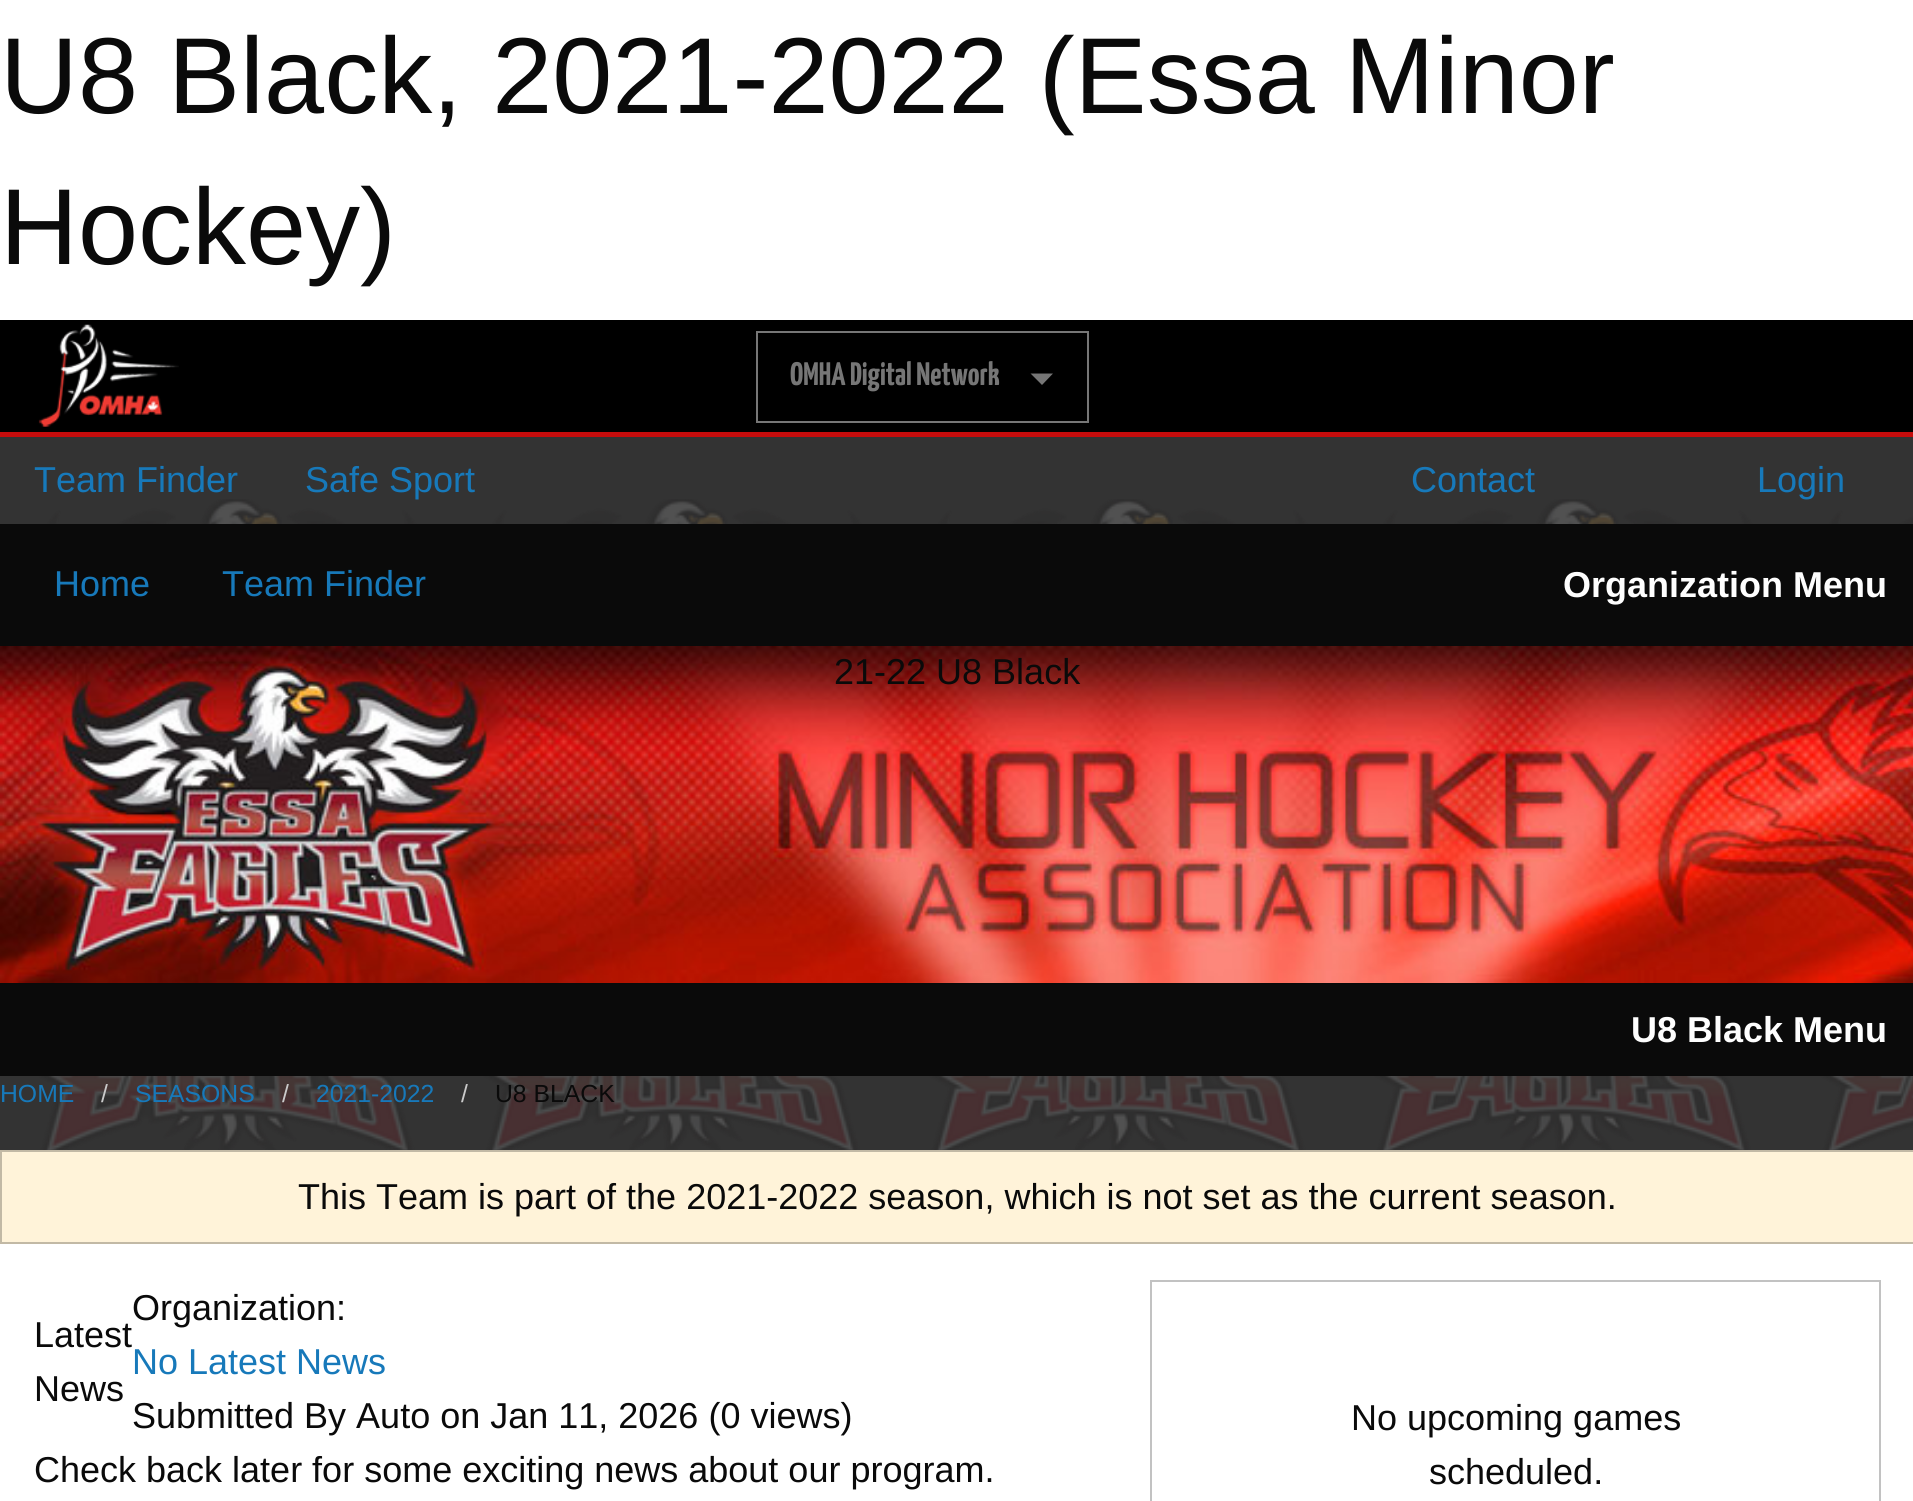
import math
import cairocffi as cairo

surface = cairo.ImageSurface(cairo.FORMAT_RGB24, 1913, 1501)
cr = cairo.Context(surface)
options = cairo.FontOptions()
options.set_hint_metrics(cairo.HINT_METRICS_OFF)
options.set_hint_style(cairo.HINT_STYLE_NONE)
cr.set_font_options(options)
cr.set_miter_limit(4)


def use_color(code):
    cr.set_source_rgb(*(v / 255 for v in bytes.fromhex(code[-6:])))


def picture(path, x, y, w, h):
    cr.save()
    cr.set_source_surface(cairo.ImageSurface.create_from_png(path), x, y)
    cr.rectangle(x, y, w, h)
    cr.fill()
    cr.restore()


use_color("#ffffff")
cr.paint()
cr.select_font_face("Liberation Sans")
cr.set_font_size(108)
use_color("#0a0a0a")
cr.move_to(0, 113)
cr.show_text("U8 Black, 2021-2022 (Essa Minor")
cr.move_to(0, 264)
cr.show_text("Hockey)")
use_color("#000000")
cr.rectangle(0, 320, 1913, 112)
cr.fill()
use_color("#c60c0c")
cr.rectangle(0, 432, 1913, 5)
cr.fill()
picture("img1.png", 38, 324, 141, 103)
cr.rectangle(757, 332, 331, 90)
use_color("#767676")
cr.stroke()
cr.select_font_face("Yanone Kaffeesatz ExtraLight")
cr.set_font_size(32.5)
cr.move_to(790, 385)
cr.show_text("OMHA Digital Network")
cr.new_path()
cr.move_to(1030.5, 373.5)
cr.line_to(1053, 373.5)
cr.line_to(1042, 385)
cr.close_path()
cr.fill()
use_color("#333333")
cr.rectangle(0, 437, 1913, 713)
cr.fill()
picture("img2.png", 39, 499, 1874, 651)
cr.select_font_face("Liberation Sans")
cr.set_font_size(36)
use_color("#1779ba")
cr.move_to(34, 492)
cr.show_text("Team Finder")
cr.move_to(305, 492)
cr.show_text("Safe Sport")
cr.move_to(1411, 492)
cr.show_text("Contact")
cr.move_to(1757, 492)
cr.show_text("Login")
use_color("#0a0a0a")
cr.rectangle(0, 524, 1913, 122)
cr.fill()
use_color("#1779ba")
cr.move_to(54, 596)
cr.show_text("Home")
cr.move_to(222, 596)
cr.show_text("Team Finder")
cr.select_font_face("Liberation Sans", cairo.FONT_SLANT_NORMAL, cairo.FONT_WEIGHT_BOLD)
use_color("#fefefe")
cr.move_to(1563, 597)
cr.show_text("Organization Menu")
picture("img3.png", 0, 646, 1913, 337)
cr.select_font_face("Liberation Sans")
use_color("#0a0a0a")
cr.move_to(834, 684)
cr.show_text("21-22 U8 Black")
cr.rectangle(0, 983, 1913, 93)
cr.fill()
cr.select_font_face("Liberation Sans", cairo.FONT_SLANT_NORMAL, cairo.FONT_WEIGHT_BOLD)
use_color("#fefefe")
cr.move_to(1631, 1042)
cr.show_text("U8 Black Menu")
cr.select_font_face("Liberation Sans")
cr.set_font_size(24.75)
use_color("#1779ba")
cr.move_to(0, 1102)
cr.show_text("HOME")
use_color("#cacaca")
cr.move_to(101, 1102)
cr.show_text("/")
use_color("#1779ba")
cr.move_to(135, 1102)
cr.show_text("SEASONS")
use_color("#cacaca")
cr.move_to(282, 1102)
cr.show_text("/")
use_color("#1779ba")
cr.move_to(316, 1102)
cr.show_text("2021-2022")
use_color("#cacaca")
cr.move_to(461, 1102)
cr.show_text("/")
use_color("#0a0a0a")
cr.move_to(495, 1102)
cr.show_text("U8 BLACK")
use_color("#fff3d9")
cr.rectangle(1, 1151, 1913, 92)
cr.fill_preserve()
use_color("#c2b9a5")
cr.stroke()
cr.set_font_size(36)
use_color("#0a0a0a")
cr.move_to(298, 1209)
cr.show_text("This Team is part of the 2021-2022 season, which is not set as the current season.")
cr.move_to(34, 1347)
cr.show_text("Latest")
cr.move_to(34, 1401)
cr.show_text("News")
cr.move_to(132, 1320)
cr.show_text("Organization:")
use_color("#1779ba")
cr.move_to(132, 1374)
cr.show_text("No Latest News")
use_color("#0a0a0a")
cr.move_to(132, 1428)
cr.show_text("Submitted By Auto on Jan 11, 2026 (0 views)")
cr.move_to(34, 1482)
cr.show_text("Check back later for some exciting news about our program.")
cr.rectangle(1151, 1281, 729, 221)
use_color("#c2c2c2")
cr.stroke()
use_color("#0a0a0a")
cr.move_to(1351, 1430)
cr.show_text("No upcoming games")
cr.move_to(1429, 1484)
cr.show_text("scheduled.")
surface.write_to_png("result.png")
